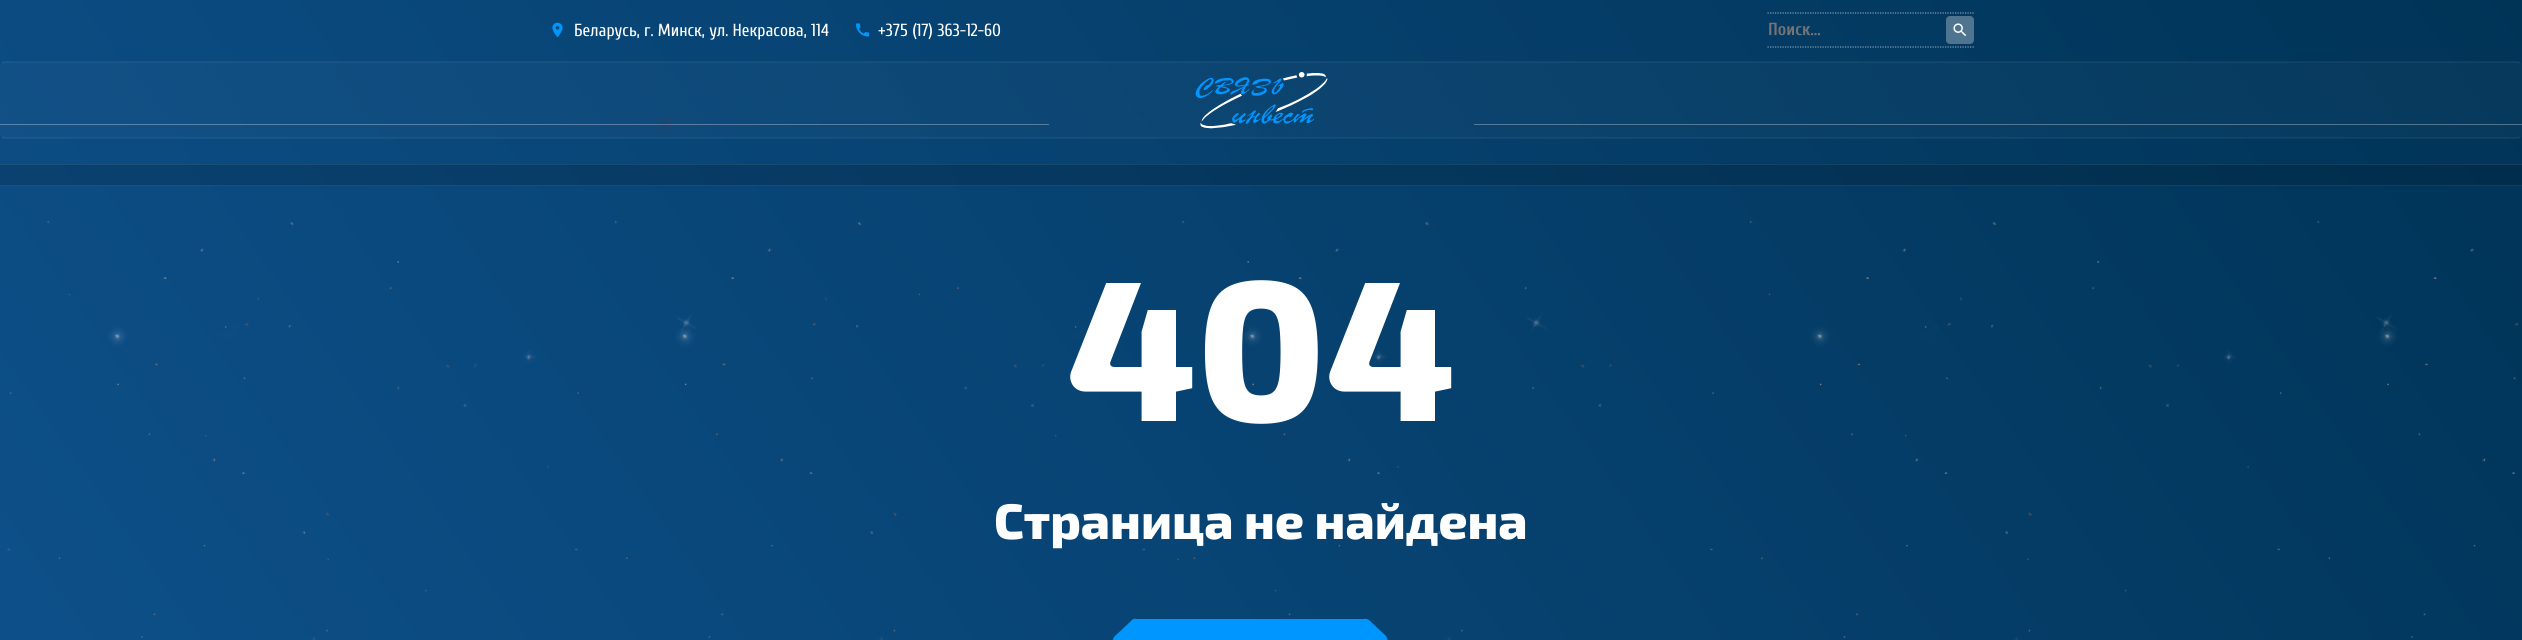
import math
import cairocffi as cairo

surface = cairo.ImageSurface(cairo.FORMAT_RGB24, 2522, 640)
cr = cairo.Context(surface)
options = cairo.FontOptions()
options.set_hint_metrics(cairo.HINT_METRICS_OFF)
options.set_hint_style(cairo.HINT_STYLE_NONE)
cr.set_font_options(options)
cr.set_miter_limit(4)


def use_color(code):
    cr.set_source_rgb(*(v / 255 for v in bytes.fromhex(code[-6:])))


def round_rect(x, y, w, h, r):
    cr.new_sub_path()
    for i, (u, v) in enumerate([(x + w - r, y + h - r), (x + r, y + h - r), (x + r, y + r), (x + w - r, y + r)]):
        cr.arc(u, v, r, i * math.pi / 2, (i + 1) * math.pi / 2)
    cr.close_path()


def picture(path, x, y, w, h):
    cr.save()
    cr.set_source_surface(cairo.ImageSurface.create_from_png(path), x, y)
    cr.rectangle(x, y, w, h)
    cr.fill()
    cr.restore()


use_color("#ffffff")
cr.paint()
gradient = cairo.LinearGradient(202, 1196, 2321, -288)
gradient.add_color_stop_rgba(0, 0.055, 0.318, 0.549, 1)
gradient.add_color_stop_rgba(1, 0, 0.204, 0.341, 1)
cr.set_source(gradient)
cr.rectangle(0, 0, 2522, 640)
cr.fill()
gradient = cairo.LinearGradient(202, 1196, 2321, -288)
gradient.add_color_stop_rgba(0, 0.047, 0.271, 0.467, 1)
gradient.add_color_stop_rgba(1, 0, 0.173, 0.29, 1)
cr.set_source(gradient)
cr.rectangle(0, 165, 2522, 20)
cr.fill()
gradient = cairo.LinearGradient(202, 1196, 2321, -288)
gradient.add_color_stop_rgba(0, 0.122, 0.329, 0.51, 1)
gradient.add_color_stop_rgba(1, 0.078, 0.239, 0.345, 1)
cr.set_source(gradient)
cr.rectangle(0, 185, 2522, 1)
cr.fill()
cr.rectangle(0, 164, 2522, 1)
cr.fill()
picture("img1.png", 552, 22, 11, 16)
cr.select_font_face("Cuprum")
cr.set_font_size(17.5)
use_color("#ffffff")
cr.move_to(574, 36)
cr.show_text("Беларусь, г. Минск, ул. Некрасова, 114")
picture("img2.png", 856, 23, 14, 14)
cr.move_to(878, 36)
cr.show_text("+375 (17) 363-12-60")
cr.new_path()
cr.move_to(1767.5, 13)
cr.line_to(1974, 13)
cr.set_source_rgba(1, 1, 1, 0.5)
cr.set_line_width(1.2)
cr.set_dash([1.25, 1.25])
cr.stroke()
cr.new_path()
cr.move_to(1767.5, 47)
cr.line_to(1974, 47)
cr.stroke()
cr.select_font_face("Cuprum", cairo.FONT_SLANT_NORMAL, cairo.FONT_WEIGHT_BOLD)
use_color("#757575")
cr.move_to(1768, 35)
cr.show_text("Поиск...")
use_color("#4f7490")
round_rect(1946, 16, 28, 28, 4)
cr.fill()
picture("img3.png", 1953, 23, 14, 14)
picture("img4.png", 0, 62, 2522, 76)
cr.new_path()
cr.move_to(2, 63)
cr.line_to(5, 62)
cr.line_to(2517.5, 62)
cr.line_to(2520.5, 63)
cr.set_source_rgba(1, 1, 1, 0.08)
cr.set_dash([])
cr.stroke()
cr.new_path()
cr.move_to(2520.5, 137)
cr.line_to(2517.5, 138)
cr.line_to(5, 138)
cr.line_to(2, 137)
cr.stroke()
picture("img5.png", 1195, 72, 133, 57)
cr.set_source_rgba(1, 1, 1, 0.3)
cr.rectangle(0, 124, 568, 1)
cr.fill()
cr.rectangle(568, 124, 481, 1)
cr.fill()
cr.set_source_rgba(1, 0.161, 0.302, 0.04)
cr.rectangle(568, 124, 193, 1)
cr.fill()
cr.set_source_rgba(0.216, 0.106, 0.141, 0.04)
cr.rectangle(659, 118, 12, 12)
cr.fill()
cr.rectangle(660.5, 119.5, 9, 9)
cr.set_source_rgba(1, 0.161, 0.302, 0.04)
cr.set_line_width(3)
cr.stroke()
cr.set_source_rgba(1, 1, 1, 0.3)
cr.rectangle(1474, 124, 481, 1)
cr.fill()
cr.rectangle(1955, 124, 567, 1)
cr.fill()
picture("img6.png", 7, 221, 2512, 419)
picture("img7.png", 68, 261, 2328, 379)
cr.select_font_face("Exo 2 ExtraBold")
cr.set_font_size(200)
use_color("#ffffff")
cr.move_to(1067, 421)
cr.show_text("404")
cr.set_font_size(50)
cr.move_to(994, 539)
cr.show_text("Страница не найдена")
use_color("#0096ff")
cr.rectangle(1136, 619, 228, 21)
cr.fill()
cr.new_path()
cr.move_to(1139, 621)
cr.line_to(1155, 636)
cr.curve_to(1158, 639, 1158, 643, 1155, 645)
cr.line_to(1139, 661)
cr.curve_to(1137, 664, 1133, 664, 1131, 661)
cr.line_to(1115, 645)
cr.curve_to(1112, 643, 1112, 639, 1115, 636)
cr.line_to(1131, 621)
cr.curve_to(1133, 618, 1137, 618, 1139, 621)
cr.close_path()
cr.fill()
cr.new_path()
cr.move_to(1370, 621)
cr.line_to(1386, 636)
cr.curve_to(1388, 639, 1388, 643, 1386, 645)
cr.line_to(1370, 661)
cr.curve_to(1367, 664, 1364, 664, 1361, 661)
cr.line_to(1345, 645)
cr.curve_to(1343, 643, 1343, 639, 1345, 636)
cr.line_to(1361, 621)
cr.curve_to(1364, 618, 1367, 618, 1370, 621)
cr.close_path()
cr.fill()
surface.write_to_png("result.png")
